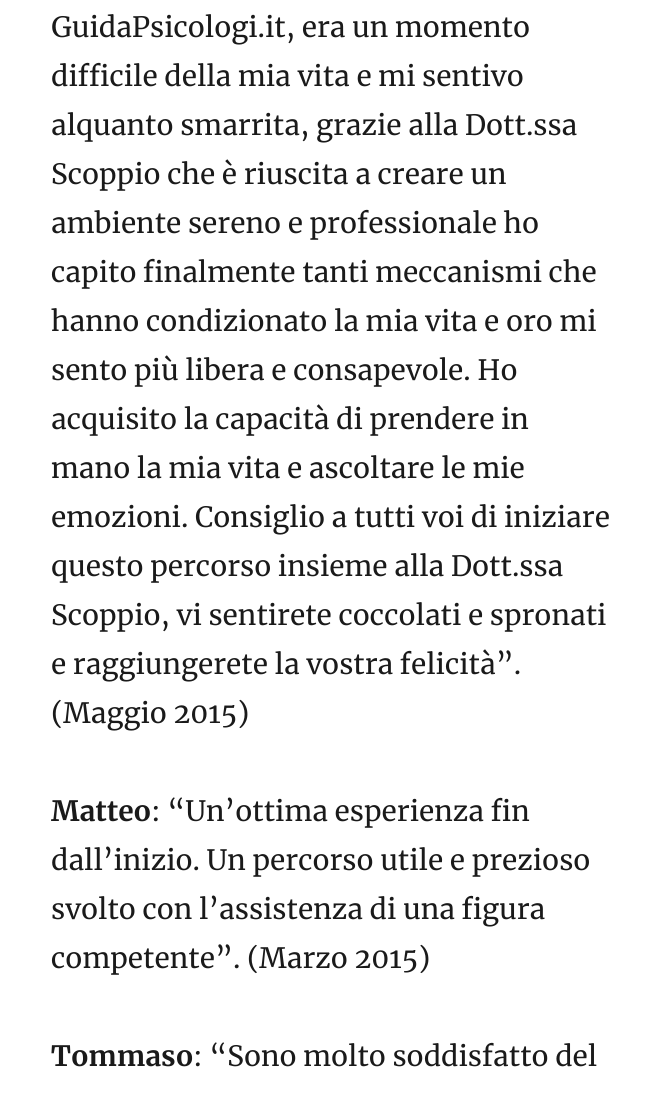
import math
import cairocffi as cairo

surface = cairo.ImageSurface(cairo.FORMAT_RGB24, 661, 1103)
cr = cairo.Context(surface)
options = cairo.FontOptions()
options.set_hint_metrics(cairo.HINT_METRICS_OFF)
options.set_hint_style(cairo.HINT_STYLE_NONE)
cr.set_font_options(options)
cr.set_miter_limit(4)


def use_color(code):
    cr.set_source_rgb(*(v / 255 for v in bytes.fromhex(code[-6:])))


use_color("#ffffff")
cr.paint()
cr.select_font_face("Merriweather")
cr.set_font_size(28)
use_color("#1a1a1a")
cr.move_to(51, 37)
cr.show_text("GuidaPsicologi.it, era un momento")
cr.move_to(51, 86)
cr.show_text("difficile della mia vita e mi sentivo")
cr.move_to(51, 135)
cr.show_text("alquanto smarrita, grazie alla Dott.ssa")
cr.move_to(51, 184)
cr.show_text("Scoppio che è riuscita a creare un")
cr.move_to(51, 233)
cr.show_text("ambiente sereno e professionale ho")
cr.move_to(51, 282)
cr.show_text("capito finalmente tanti meccanismi che")
cr.move_to(51, 331)
cr.show_text("hanno condizionato la mia vita e oro mi")
cr.move_to(51, 380)
cr.show_text("sento più libera e consapevole. Ho")
cr.move_to(51, 429)
cr.show_text("acquisito la capacità di prendere in")
cr.move_to(51, 478)
cr.show_text("mano la mia vita e ascoltare le mie")
cr.move_to(51, 527)
cr.show_text("emozioni. Consiglio a tutti voi di iniziare")
cr.move_to(51, 576)
cr.show_text("questo percorso insieme alla Dott.ssa")
cr.move_to(51, 625)
cr.show_text("Scoppio, vi sentirete coccolati e spronati")
cr.move_to(51, 674)
cr.show_text("e raggiungerete la vostra felicità”.")
cr.move_to(51, 723)
cr.show_text("(Maggio 2015)")
cr.select_font_face("Merriweather", cairo.FONT_SLANT_NORMAL, cairo.FONT_WEIGHT_BOLD)
cr.move_to(51, 821)
cr.show_text("Matteo")
cr.select_font_face("Merriweather")
cr.move_to(151, 821)
cr.show_text(": “Un’ottima esperienza fin")
cr.move_to(51, 870)
cr.show_text("dall’inizio. Un percorso utile e prezioso")
cr.move_to(51, 919)
cr.show_text("svolto con l’assistenza di una figura")
cr.move_to(51, 968)
cr.show_text("competente”. (Marzo 2015)")
cr.select_font_face("Merriweather", cairo.FONT_SLANT_NORMAL, cairo.FONT_WEIGHT_BOLD)
cr.move_to(51, 1066)
cr.show_text("Tommaso")
cr.select_font_face("Merriweather")
cr.move_to(193, 1066)
cr.show_text(": “Sono molto soddisfatto del")
surface.write_to_png("result.png")
